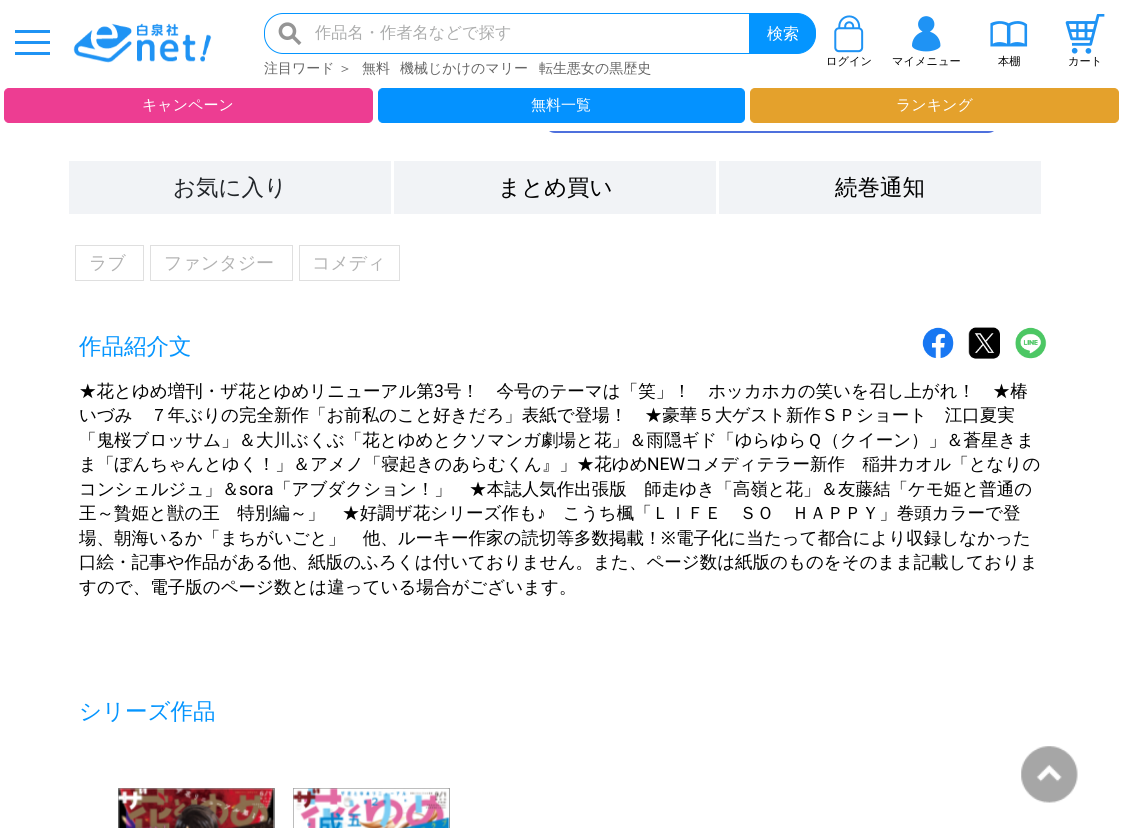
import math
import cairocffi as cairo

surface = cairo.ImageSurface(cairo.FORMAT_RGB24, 1122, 828)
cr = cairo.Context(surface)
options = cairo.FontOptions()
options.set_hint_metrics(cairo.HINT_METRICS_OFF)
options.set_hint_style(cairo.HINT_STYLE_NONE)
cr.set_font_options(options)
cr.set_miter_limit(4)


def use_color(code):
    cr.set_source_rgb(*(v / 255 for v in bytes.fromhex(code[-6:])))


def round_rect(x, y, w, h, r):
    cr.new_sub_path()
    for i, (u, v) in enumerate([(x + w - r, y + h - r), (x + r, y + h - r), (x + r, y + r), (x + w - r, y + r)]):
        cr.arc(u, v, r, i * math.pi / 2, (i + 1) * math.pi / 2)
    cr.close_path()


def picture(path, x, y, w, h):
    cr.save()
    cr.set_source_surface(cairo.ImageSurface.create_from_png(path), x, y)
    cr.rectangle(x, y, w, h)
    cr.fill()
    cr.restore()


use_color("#ffffff")
cr.paint()
round_rect(546.5, 70.5, 450, 61, 8.5)
use_color("#4e70dd")
cr.set_line_width(3)
cr.stroke()
use_color("#ffffff")
cr.rectangle(545, 69, 453, 62)
cr.fill()
use_color("#1f93f4")
cr.rectangle(15, 30, 35, 3)
cr.fill()
cr.rectangle(15, 41, 35, 3)
cr.fill()
cr.rectangle(15, 52, 35, 3)
cr.fill()
picture("img1.png", 73, 23, 139, 40)
picture("img2.png", 278, 22, 24, 23)
cr.new_path()
cr.move_to(283, 13.5)
cr.line_to(749.5, 13.5)
cr.line_to(749.5, 53.5)
cr.line_to(283, 53.5)
cr.curve_to(273, 53.5, 264.5, 45, 264.5, 35)
cr.line_to(264.5, 32)
cr.curve_to(264.5, 22, 273, 13.5, 283, 13.5)
cr.close_path()
use_color("#0495ff")
cr.set_line_width(1)
cr.stroke()
cr.select_font_face("WenQuanYi Zen Hei Medium")
cr.set_font_size(16.25)
use_color("#acadad")
cr.move_to(315, 38)
cr.show_text("作品名・作者名などで探す")
use_color("#0495ff")
cr.new_path()
cr.move_to(750.5, 13.5)
cr.line_to(797, 13.5)
cr.curve_to(807, 13.5, 815.5, 22, 815.5, 32)
cr.line_to(815.5, 35)
cr.curve_to(815.5, 45, 807, 53.5, 797, 53.5)
cr.line_to(750.5, 53.5)
cr.close_path()
cr.fill_preserve()
cr.stroke()
cr.set_font_size(16)
use_color("#ffffff")
cr.move_to(767, 39)
cr.show_text("検索")
cr.set_font_size(14)
use_color("#666666")
cr.move_to(264, 73)
cr.show_text("注目ワード")
cr.move_to(338, 73)
cr.show_text("＞")
cr.move_to(362, 73)
cr.show_text("無料")
cr.move_to(400, 73)
cr.show_text("機械じかけのマリー")
cr.move_to(539, 73)
cr.show_text("転生悪女の黒歴史")
picture("img3.png", 834, 15, 30, 38)
cr.set_font_size(11.25)
use_color("#000000")
cr.move_to(826, 65)
cr.show_text("ログイン")
picture("img4.png", 912, 16, 29, 36)
cr.move_to(892, 65)
cr.show_text("マイメニュー")
picture("img5.png", 990, 21, 38, 26)
cr.move_to(998, 65)
cr.show_text("本棚")
picture("img6.png", 1065, 14, 40, 40)
cr.move_to(1068, 65)
cr.show_text("カート")
use_color("#ed3d92")
round_rect(4.5, 88.5, 368, 34, 4.5)
cr.fill_preserve()
cr.stroke()
cr.set_font_size(15)
use_color("#ffffff")
cr.move_to(142, 110)
cr.show_text("キャンペーン")
use_color("#0492ff")
round_rect(378.5, 88.5, 366, 34, 4.5)
cr.fill_preserve()
cr.stroke()
use_color("#ffffff")
cr.move_to(531, 110)
cr.show_text("無料一覧")
use_color("#e4a12c")
round_rect(750.5, 88.5, 368, 34, 4.5)
cr.fill_preserve()
cr.stroke()
use_color("#ffffff")
cr.move_to(896, 110)
cr.show_text("ランキング")
use_color("#f1f3f6")
cr.rectangle(69, 161, 322, 53)
cr.fill()
cr.set_font_size(22.5)
use_color("#212529")
cr.move_to(173, 195)
cr.show_text("お気に入り")
use_color("#f1f3f6")
cr.rectangle(394, 161, 322, 53)
cr.fill()
use_color("#000000")
cr.move_to(498, 195)
cr.show_text("まとめ買い")
use_color("#f1f3f6")
cr.rectangle(719, 161, 322, 53)
cr.fill()
use_color("#000000")
cr.move_to(835, 195)
cr.show_text("続巻通知")
cr.rectangle(75.5, 245.5, 68, 35)
use_color("#dfdfdf")
cr.stroke()
cr.set_font_size(18)
use_color("#b3b3b3")
cr.move_to(89, 269)
cr.show_text("ラブ")
cr.rectangle(150.5, 245.5, 142, 35)
use_color("#dfdfdf")
cr.stroke()
use_color("#b3b3b3")
cr.move_to(164, 269)
cr.show_text("ファンタジー")
cr.rectangle(299.5, 245.5, 100, 35)
use_color("#dfdfdf")
cr.stroke()
use_color("#b3b3b3")
cr.move_to(312, 269)
cr.show_text("コメディ")
cr.set_font_size(22.5)
use_color("#0495ff")
cr.move_to(79, 354)
cr.show_text("作品紹介文")
picture("img7.png", 922, 327, 32, 31)
picture("img8.png", 968, 327, 32, 32)
picture("img9.png", 1015, 327, 32, 32)
cr.set_font_size(17.5)
use_color("#000000")
cr.move_to(79, 397)
cr.show_text("★花とゆめ増刊・ザ花とゆめリニューアル第")
cr.select_font_face("Roboto")
cr.move_to(434, 397)
cr.show_text("3")
cr.select_font_face("WenQuanYi Zen Hei Medium")
cr.move_to(444, 397)
cr.show_text("号！　今号のテーマは「笑」！　ホッカホカの笑いを召し上がれ！　★椿")
cr.move_to(79, 421)
cr.show_text("いづみ　７年ぶりの完全新作「お前私のこと好きだろ」表紙で登場！　★豪華５大ゲスト新作ＳＰショート　江口夏実")
cr.move_to(79, 446)
cr.show_text("「鬼桜ブロッサム」＆大川ぶくぶ「花とゆめとクソマンガ劇場と花」＆雨隠ギド「ゆらゆらＱ（クイーン）」＆蒼星きま")
cr.move_to(79, 470)
cr.show_text("ま「ぽんちゃんとゆく！」＆アメノ「寝起きのあらむくん』」★花ゆめ")
cr.select_font_face("Roboto")
cr.move_to(647, 470)
cr.show_text("NEW")
cr.select_font_face("WenQuanYi Zen Hei Medium")
cr.move_to(685, 470)
cr.show_text("コメディテラー新作　稲井カオル「となりの")
cr.move_to(79, 495)
cr.show_text("コンシェルジュ」＆")
cr.select_font_face("Roboto")
cr.move_to(239, 495)
cr.show_text("sora")
cr.select_font_face("WenQuanYi Zen Hei Medium")
cr.move_to(274, 495)
cr.show_text("「アブダクション！」　★本誌人気作出張版　師走ゆき「高嶺と花」＆友藤結「ケモ姫と普通の")
cr.move_to(79, 519)
cr.show_text("王～贄姫と獣の王　特別編～」　★好調ザ花シリーズ作も")
cr.select_font_face("Liberation Sans")
cr.move_to(537, 519)
cr.show_text("♪")
cr.select_font_face("WenQuanYi Zen Hei Medium")
cr.move_to(563, 519)
cr.show_text("こうち楓「ＬＩＦＥ　ＳＯ　ＨＡＰＰＹ」巻頭カラーで登")
cr.move_to(79, 544)
cr.show_text("場、朝海いるか「まちがいごと」　他、ルーキー作家の読切等多数掲載！")
cr.select_font_face("Noto Sans")
cr.move_to(661, 544)
cr.show_text("※")
cr.select_font_face("WenQuanYi Zen Hei Medium")
cr.move_to(676, 544)
cr.show_text("電子化に当たって都合により収録しなかった")
cr.move_to(79, 568)
cr.show_text("口絵・記事や作品がある他、紙版のふろくは付いておりません。また、ページ数は紙版のものをそのまま記載しておりま")
cr.move_to(79, 593)
cr.show_text("すので、電子版のページ数とは違っている場合がございます。")
cr.set_font_size(22.5)
use_color("#0495ff")
cr.move_to(79, 719)
cr.show_text("シリーズ作品")
cr.rectangle(118.5, 788.5, 156, 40)
use_color("#999999")
cr.stroke()
picture("img10.png", 118, 788, 157, 40)
cr.rectangle(293.5, 788.5, 156, 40)
cr.stroke()
picture("img11.png", 293, 788, 157, 40)
picture("img12.png", 1021, 746, 57, 57)
surface.write_to_png("result.png")
